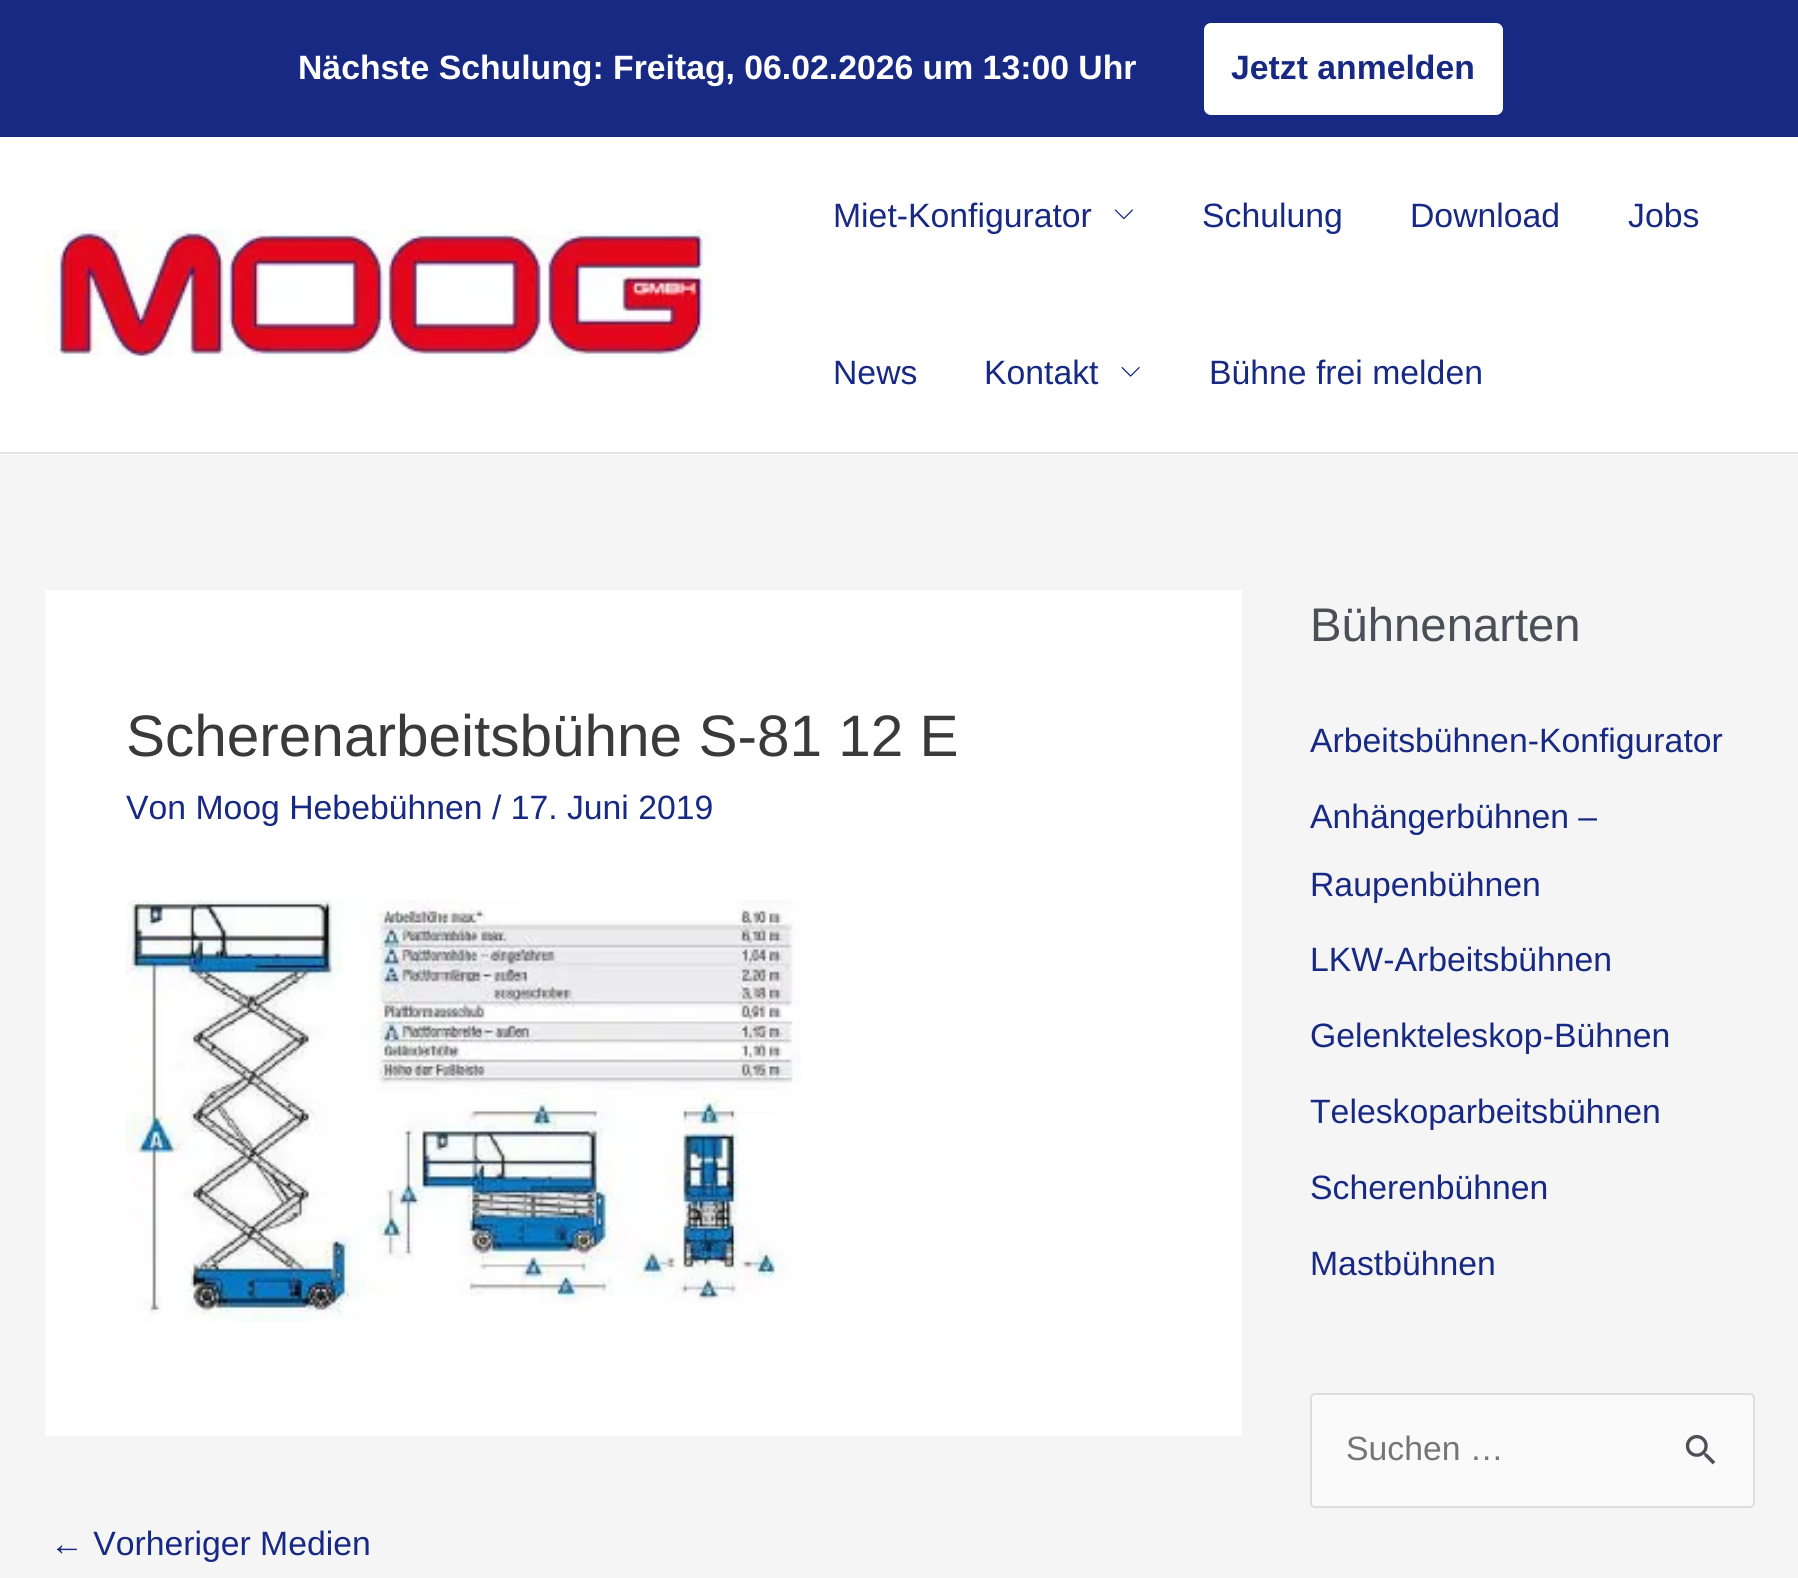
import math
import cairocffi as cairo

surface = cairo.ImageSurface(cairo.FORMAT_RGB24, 1798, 1578)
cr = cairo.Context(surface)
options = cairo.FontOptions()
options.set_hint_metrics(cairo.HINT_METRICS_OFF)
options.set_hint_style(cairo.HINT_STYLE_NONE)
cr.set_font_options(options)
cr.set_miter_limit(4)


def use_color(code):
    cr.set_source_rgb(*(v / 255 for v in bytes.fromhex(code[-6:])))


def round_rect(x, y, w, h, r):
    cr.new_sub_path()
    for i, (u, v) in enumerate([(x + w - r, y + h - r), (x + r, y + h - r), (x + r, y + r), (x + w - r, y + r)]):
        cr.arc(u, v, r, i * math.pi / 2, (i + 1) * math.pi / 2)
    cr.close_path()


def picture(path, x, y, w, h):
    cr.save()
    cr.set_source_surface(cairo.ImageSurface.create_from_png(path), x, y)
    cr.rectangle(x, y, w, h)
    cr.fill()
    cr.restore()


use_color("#f5f5f5")
cr.paint()
use_color("#172983")
cr.rectangle(0, 0, 1798, 137)
cr.fill()
cr.select_font_face("Liberation Sans", cairo.FONT_SLANT_NORMAL, cairo.FONT_WEIGHT_BOLD)
cr.set_font_size(33.75)
use_color("#ffffff")
cr.move_to(298, 79)
cr.show_text("Nächste Schulung: Freitag, 06.02.2026 um 13:00 Uhr")
round_rect(1204, 23, 299, 92, 7)
cr.fill()
use_color("#172983")
cr.move_to(1231, 79)
cr.show_text("Jetzt anmelden")
use_color("#ffffff")
cr.rectangle(0, 137, 1798, 318)
cr.fill()
use_color("#e5e5e5")
cr.rectangle(0, 452, 1798, 2)
cr.fill()
picture("img1.png", 45, 229, 667, 129)
cr.select_font_face("Liberation Sans")
use_color("#172983")
cr.move_to(833, 227)
cr.show_text("Miet-Konfigurator")
picture("img2.png", 1114, 209, 19, 11)
cr.move_to(1202, 227)
cr.show_text("Schulung")
cr.move_to(1410, 227)
cr.show_text("Download")
cr.move_to(1628, 227)
cr.show_text("Jobs")
cr.move_to(833, 384)
cr.show_text("News")
cr.move_to(984, 384)
cr.show_text("Kontakt")
picture("img3.png", 1121, 367, 19, 10)
cr.move_to(1209, 384)
cr.show_text("Bühne frei melden")
use_color("#ffffff")
cr.rectangle(45, 590, 1197, 846)
cr.fill()
cr.set_font_size(58.5)
use_color("#3a3a3a")
cr.move_to(126, 756)
cr.show_text("Scherenarbeitsbühne S-81 12 E")
cr.set_font_size(33.75)
use_color("#172983")
cr.move_to(126, 819)
cr.show_text("Von Moog Hebebühnen / 17. Juni 2019")
picture("img4.png", 126, 900, 675, 423)
cr.move_to(50, 1555)
cr.show_text("← Vorheriger Medien")
cr.set_font_size(47.25)
use_color("#4b4f58")
cr.move_to(1310, 641)
cr.show_text("Bühnenarten")
cr.set_font_size(33.75)
use_color("#172983")
cr.move_to(1310, 752)
cr.show_text("Arbeitsbühnen-Konfigurator")
cr.move_to(1310, 828)
cr.show_text("Anhängerbühnen –")
cr.move_to(1310, 896)
cr.show_text("Raupenbühnen")
cr.move_to(1310, 971)
cr.show_text("LKW-Arbeitsbühnen")
cr.move_to(1310, 1047)
cr.show_text("Gelenkteleskop-Bühnen")
cr.move_to(1310, 1123)
cr.show_text("Teleskoparbeitsbühnen")
cr.move_to(1310, 1199)
cr.show_text("Scherenbühnen")
cr.move_to(1310, 1275)
cr.show_text("Mastbühnen")
use_color("#fafafa")
round_rect(1311, 1394, 443, 113, 4)
cr.fill_preserve()
use_color("#dddddd")
cr.stroke()
use_color("#757575")
cr.move_to(1346, 1460)
cr.show_text("Suchen …")
picture("img5.png", 1685, 1434, 31, 31)
surface.write_to_png("result.png")
